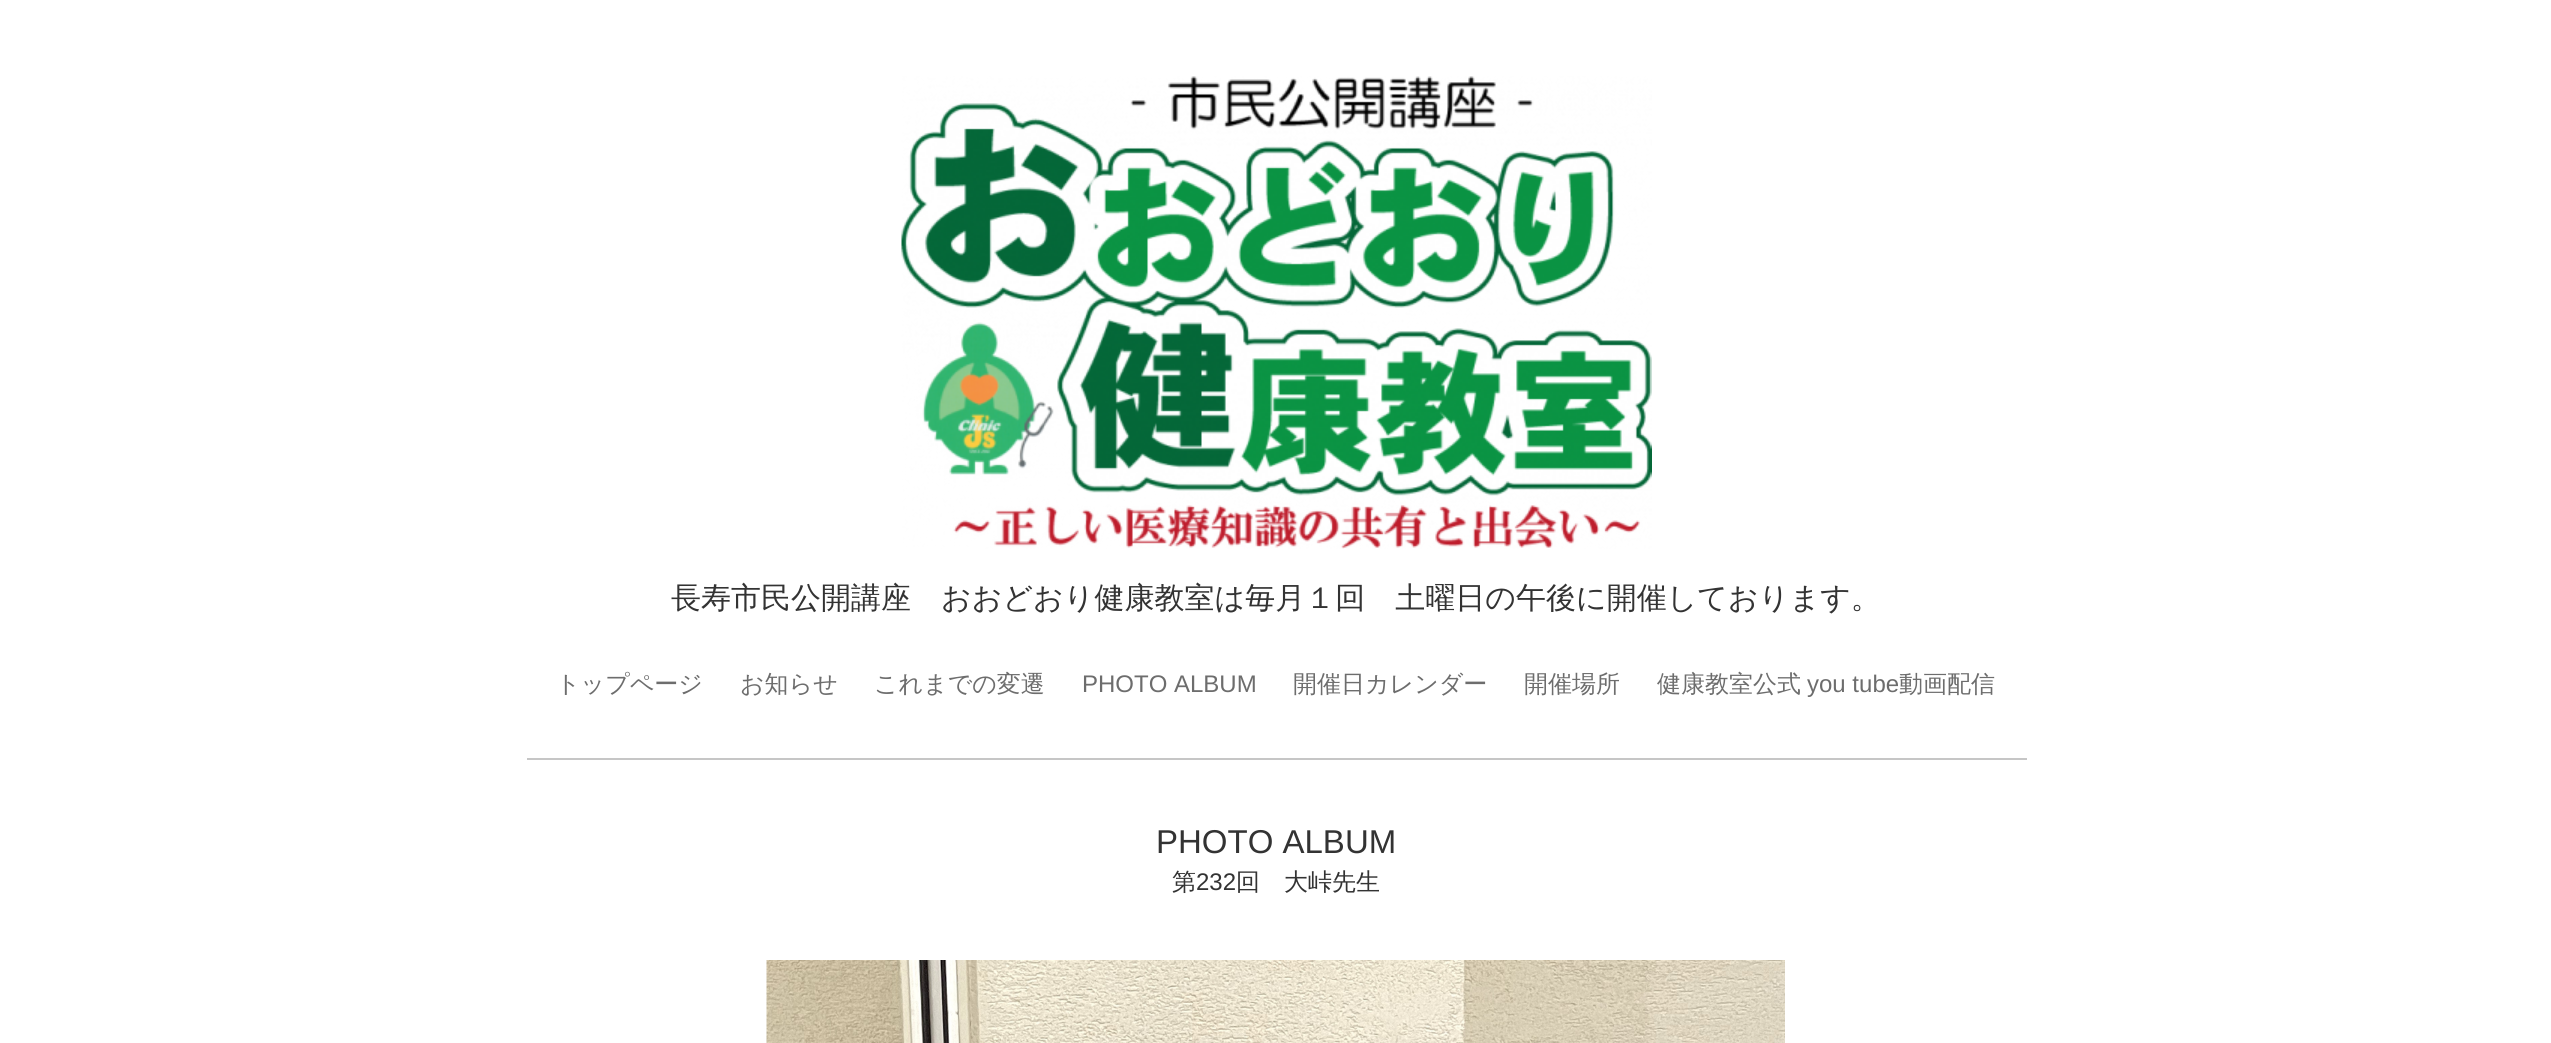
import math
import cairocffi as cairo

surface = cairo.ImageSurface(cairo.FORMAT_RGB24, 2551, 1043)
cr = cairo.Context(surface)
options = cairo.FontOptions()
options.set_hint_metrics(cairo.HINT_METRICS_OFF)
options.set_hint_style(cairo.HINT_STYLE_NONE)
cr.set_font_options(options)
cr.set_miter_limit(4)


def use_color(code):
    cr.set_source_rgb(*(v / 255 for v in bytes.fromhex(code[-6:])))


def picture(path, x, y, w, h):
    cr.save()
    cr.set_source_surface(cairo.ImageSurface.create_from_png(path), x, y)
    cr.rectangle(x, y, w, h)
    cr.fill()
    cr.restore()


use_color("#ffffff")
cr.paint()
use_color("#c6c6c6")
cr.rectangle(527, 758, 1500, 2)
cr.fill()
picture("img1.png", 901, 76, 751, 473)
cr.select_font_face("WenQuanYi Zen Hei Medium")
cr.set_font_size(30)
use_color("#333333")
cr.move_to(671, 608)
cr.show_text("長寿市民公開講座　おおどおり健康教室は毎月１回　土曜日の午後に開催しております。")
cr.set_font_size(24)
use_color("#6d6d6d")
cr.move_to(556, 692)
cr.show_text("トップページ")
cr.move_to(740, 692)
cr.show_text("お知らせ")
cr.move_to(874, 692)
cr.show_text("これまでの変遷")
cr.select_font_face("Liberation Sans")
cr.move_to(1082, 692)
cr.show_text("PHOTO ALBUM")
cr.select_font_face("WenQuanYi Zen Hei Medium")
cr.move_to(1293, 692)
cr.show_text("開催日カレンダー")
cr.move_to(1524, 692)
cr.show_text("開催場所")
cr.move_to(1657, 692)
cr.show_text("健康教室公式")
cr.select_font_face("Liberation Sans")
cr.move_to(1807, 692)
cr.show_text("you tube")
cr.select_font_face("WenQuanYi Zen Hei Medium")
cr.move_to(1899, 692)
cr.show_text("動画配信")
cr.select_font_face("Liberation Sans")
cr.set_font_size(33)
use_color("#333333")
cr.move_to(1156, 853)
cr.show_text("PHOTO ALBUM")
cr.select_font_face("WenQuanYi Zen Hei Medium")
cr.set_font_size(24)
cr.move_to(1172, 890)
cr.show_text("第")
cr.select_font_face("Liberation Sans")
cr.move_to(1196, 890)
cr.show_text("232")
cr.select_font_face("WenQuanYi Zen Hei Medium")
cr.move_to(1236, 890)
cr.show_text("回　大峠先生")
picture("img2.png", 766, 960, 1019, 83)
surface.write_to_png("result.png")
